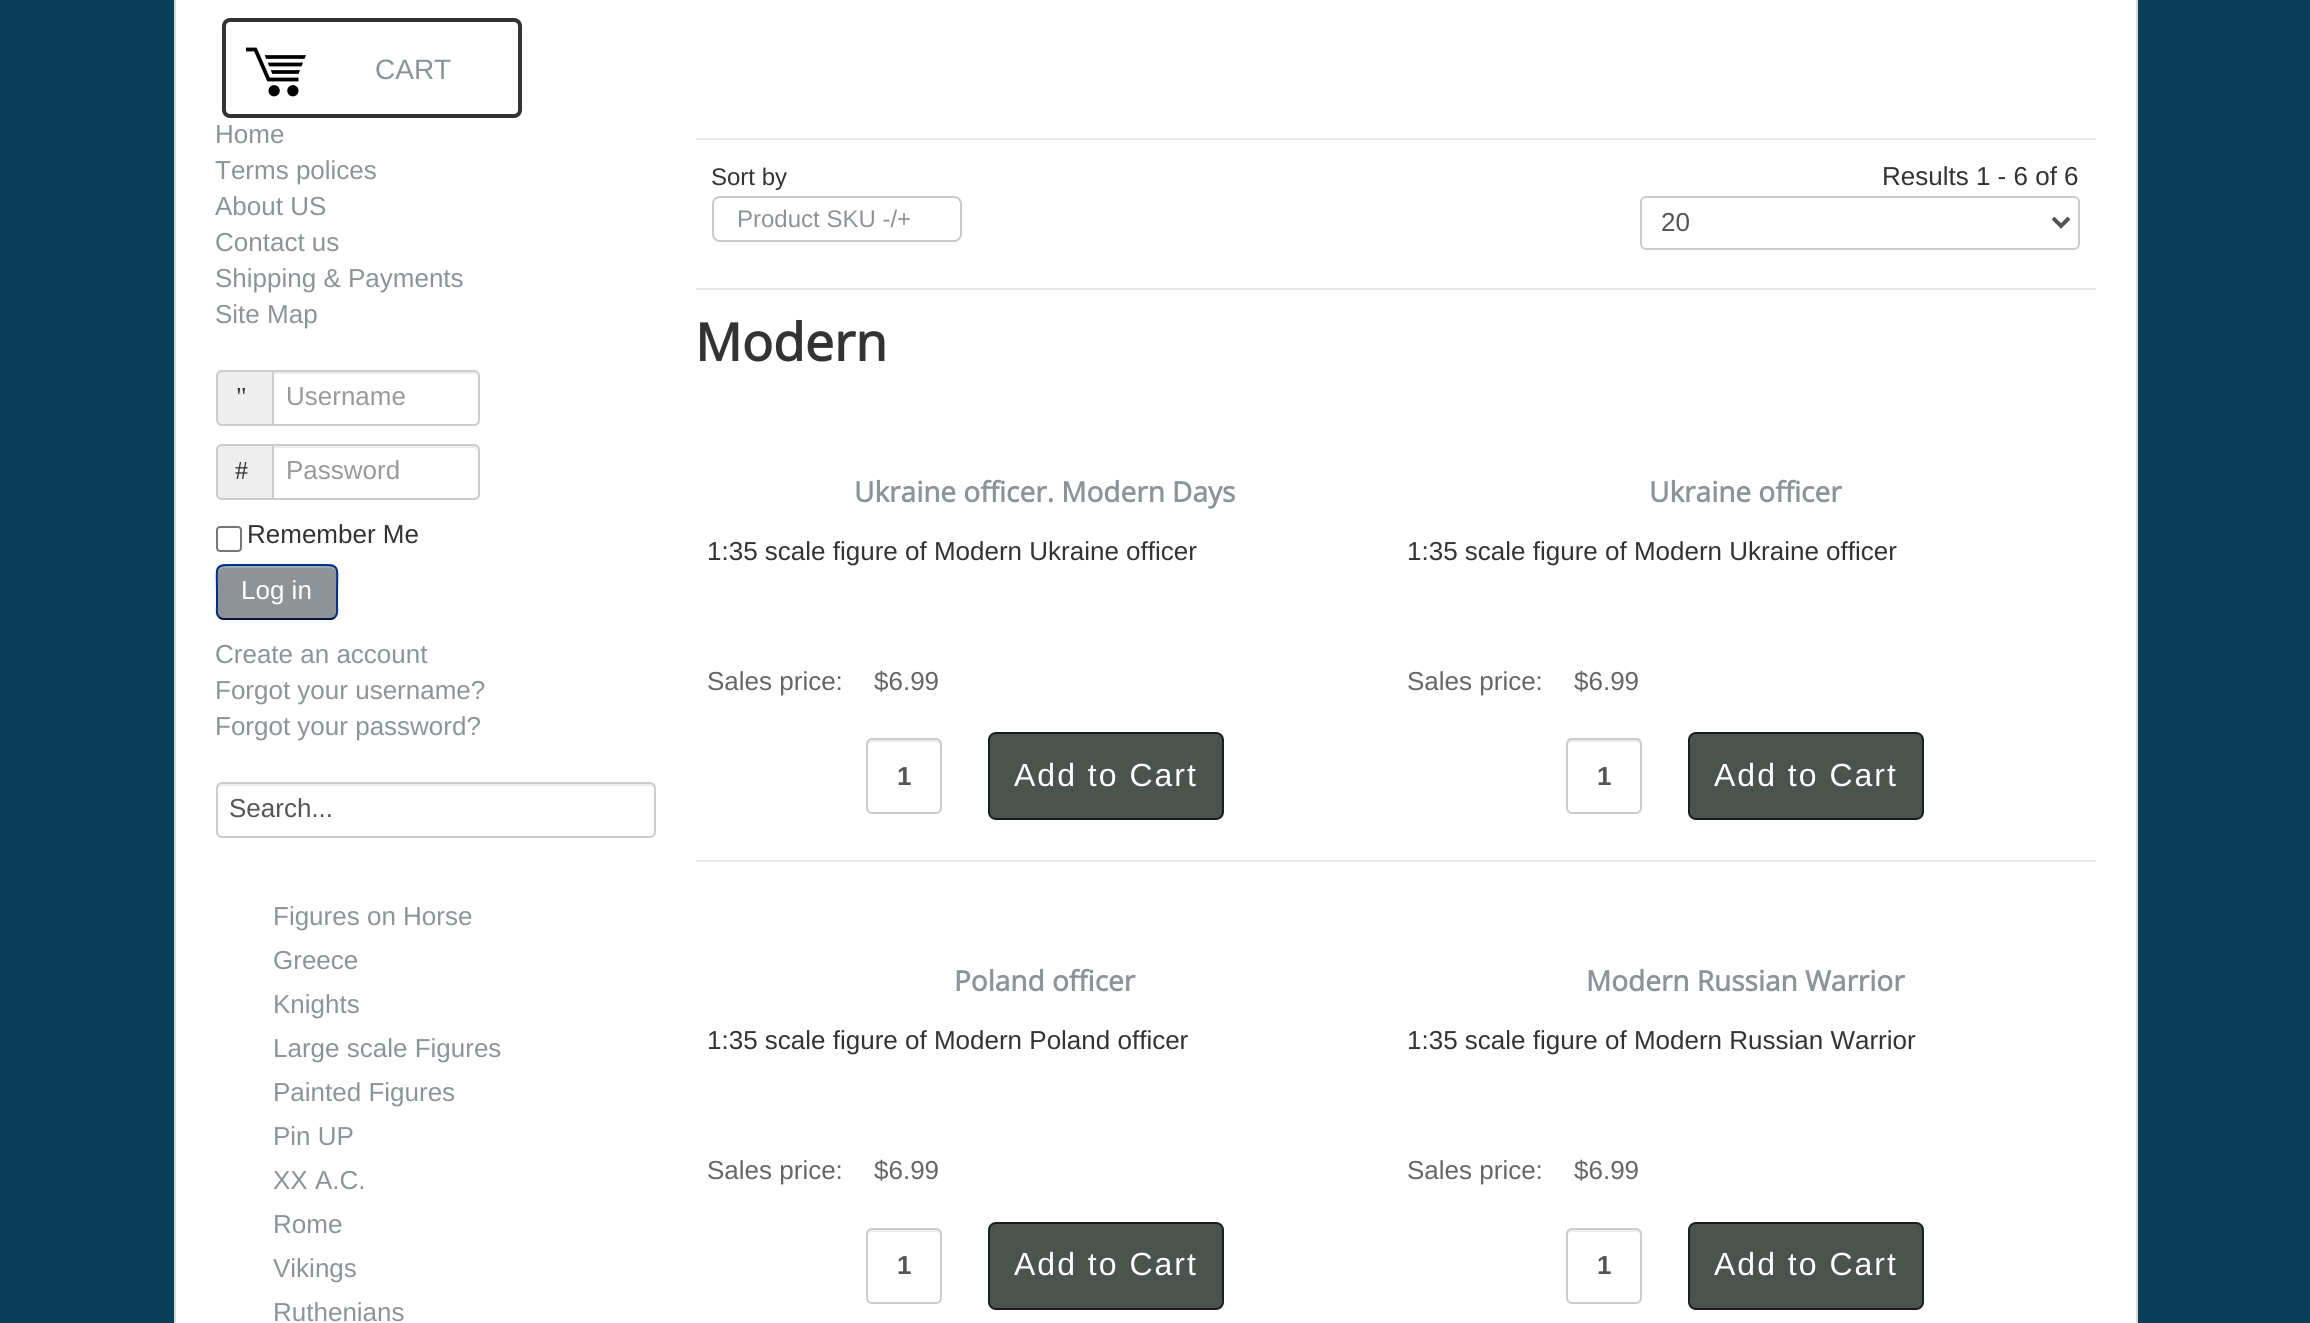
import math
import cairocffi as cairo

surface = cairo.ImageSurface(cairo.FORMAT_RGB24, 2310, 1323)
cr = cairo.Context(surface)
options = cairo.FontOptions()
options.set_hint_metrics(cairo.HINT_METRICS_OFF)
options.set_hint_style(cairo.HINT_STYLE_NONE)
cr.set_font_options(options)
cr.set_miter_limit(4)


def use_color(code):
    cr.set_source_rgb(*(v / 255 for v in bytes.fromhex(code[-6:])))


def spaced_text(x, y, s, letter, word):
    cr.move_to(x, y)
    for ch in s:
        cr.show_text(ch)
        cr.rel_move_to(letter + word * (ch == ' '), 0)


def round_rect(x, y, w, h, r):
    cr.new_sub_path()
    for i, (u, v) in enumerate([(x + w - r, y + h - r), (x + r, y + h - r), (x + r, y + r), (x + w - r, y + r)]):
        cr.arc(u, v, r, i * math.pi / 2, (i + 1) * math.pi / 2)
    cr.close_path()


def shadow(x, y, w, h, r, blur, alpha):
    cr.push_group_with_content(cairo.CONTENT_ALPHA)
    cr.set_operator(cairo.OPERATOR_SOURCE)
    for i in range(15, -16, -2):
        e = blur * i / 6
        if min(w, h) + 2 * e > 0:
            cr.set_source_rgba(0, 0, 0, alpha * math.erfc((i - 1) / 8.5) / 2)
            round_rect(x - e, y - e, w + 2 * e, h + 2 * e, max(0, min(r + e + blur * .6, min(w, h) / 2 + e)))
            cr.fill()
    cr.mask(cr.pop_group())


def picture(path, x, y, w, h):
    cr.save()
    cr.set_source_surface(cairo.ImageSurface.create_from_png(path), x, y)
    cr.rectangle(x, y, w, h)
    cr.fill()
    cr.restore()


use_color("#093e59")
cr.paint()
use_color("#ffffff")
cr.rectangle(175, -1, 1962, 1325)
cr.fill_preserve()
use_color("#d9d9d9")
cr.stroke()
round_rect(224, 20, 296, 96, 6)
use_color("#333333")
cr.set_line_width(4)
cr.stroke()
picture("img1.png", 246, 47, 60, 50)
cr.select_font_face("Liberation Sans")
cr.set_font_size(28)
use_color("#8d9396")
cr.move_to(375, 79)
cr.show_text("CART")
cr.set_font_size(26)
cr.move_to(215, 143)
cr.show_text("Home")
cr.move_to(215, 179)
cr.show_text("Terms polices")
cr.move_to(215, 215)
cr.show_text("About US")
cr.move_to(215, 251)
cr.show_text("Contact us")
cr.move_to(215, 287)
cr.show_text("Shipping & Payments")
cr.move_to(215, 323)
cr.show_text("Site Map")
use_color("#eeeeee")
cr.new_path()
cr.move_to(222, 371)
cr.line_to(273, 371)
cr.line_to(273, 425)
cr.line_to(222, 425)
cr.curve_to(219, 425, 217, 423, 217, 420)
cr.line_to(217, 376)
cr.curve_to(217, 373, 219, 371, 222, 371)
cr.close_path()
cr.fill_preserve()
use_color("#cccccc")
cr.set_line_width(2)
cr.stroke()
cr.select_font_face("Liberation Serif")
use_color("#333333")
cr.move_to(236, 405)
cr.show_text("\"")
use_color("#ffffff")
cr.new_path()
cr.move_to(272, 370)
cr.line_to(474, 370)
cr.curve_to(477.5, 370, 480, 372.5, 480, 376)
cr.line_to(480, 420)
cr.curve_to(480, 423.5, 477.5, 426, 474, 426)
cr.line_to(272, 426)
cr.close_path()
cr.fill()
use_color("#ececec")
cr.new_path()
cr.move_to(274, 374)
cr.line_to(474, 374)
cr.curve_to(476, 374, 478, 376, 478, 378)
cr.curve_to(478, 375, 478, 372, 474, 372)
cr.line_to(274, 372)
cr.close_path()
cr.fill()
cr.new_path()
cr.move_to(273, 371)
cr.line_to(474, 371)
cr.curve_to(477, 371, 479, 373, 479, 376)
cr.line_to(479, 420)
cr.curve_to(479, 423, 477, 425, 474, 425)
cr.line_to(273, 425)
cr.close_path()
use_color("#cccccc")
cr.stroke()
cr.select_font_face("Liberation Sans")
use_color("#999999")
cr.move_to(286, 405)
cr.show_text("Username")
use_color("#eeeeee")
cr.new_path()
cr.move_to(222, 445)
cr.line_to(273, 445)
cr.line_to(273, 499)
cr.line_to(222, 499)
cr.curve_to(219, 499, 217, 497, 217, 494)
cr.line_to(217, 450)
cr.curve_to(217, 447, 219, 445, 222, 445)
cr.close_path()
cr.fill_preserve()
use_color("#cccccc")
cr.stroke()
cr.select_font_face("Liberation Serif")
use_color("#333333")
cr.move_to(235, 479)
cr.show_text("#")
use_color("#ffffff")
cr.new_path()
cr.move_to(272, 444)
cr.line_to(474, 444)
cr.curve_to(477.5, 444, 480, 446.5, 480, 450)
cr.line_to(480, 494)
cr.curve_to(480, 497.5, 477.5, 500, 474, 500)
cr.line_to(272, 500)
cr.close_path()
cr.fill()
use_color("#ececec")
cr.new_path()
cr.move_to(274, 448)
cr.line_to(474, 448)
cr.curve_to(476, 448, 478, 450, 478, 452)
cr.curve_to(478, 449, 478, 446, 474, 446)
cr.line_to(274, 446)
cr.close_path()
cr.fill()
cr.new_path()
cr.move_to(273, 445)
cr.line_to(474, 445)
cr.curve_to(477, 445, 479, 447, 479, 450)
cr.line_to(479, 494)
cr.curve_to(479, 497, 477, 499, 474, 499)
cr.line_to(273, 499)
cr.close_path()
use_color("#cccccc")
cr.stroke()
cr.select_font_face("Liberation Sans")
use_color("#999999")
cr.move_to(286, 479)
cr.show_text("Password")
round_rect(217, 527, 24, 24, 3)
use_color("#767676")
cr.stroke()
use_color("#333333")
cr.move_to(247, 543)
cr.show_text("Remember Me")
use_color("#000000")
shadow(216, 566, 122, 56, 8, 2, 0.05)
use_color("#8d9396")
round_rect(216, 564, 122, 56, 8)
cr.fill()
use_color("#a4a9ab")
cr.new_path()
cr.move_to(224, 568)
cr.line_to(330, 568)
cr.curve_to(333, 568, 336, 571, 336, 574)
cr.line_to(336, 572)
cr.curve_to(336, 569, 333, 566, 330, 566)
cr.line_to(224, 566)
cr.curve_to(221, 566, 218, 569, 218, 572)
cr.line_to(218, 574)
cr.curve_to(218, 571, 221, 568, 224, 568)
cr.close_path()
cr.fill()
cr.new_path()
cr.move_to(335, 617)
cr.curve_to(333.5, 618.5, 332, 619, 330, 619)
cr.line_to(224, 619)
cr.curve_to(222, 619, 220.5, 618.5, 219, 617)
use_color("#001641")
cr.stroke()
cr.new_path()
cr.move_to(219, 617)
cr.curve_to(216, 614, 217, 609, 217, 605.5)
cr.line_to(217, 592)
cr.curve_to(217, 563, 212.5, 565, 241.5, 565)
cr.line_to(312.5, 565)
cr.curve_to(341.5, 565, 337, 563, 337, 592)
cr.line_to(337, 605.5)
cr.curve_to(337, 609, 338, 614, 335, 617)
use_color("#002f8d")
cr.stroke()
use_color("#ffffff")
cr.move_to(241, 599)
cr.show_text("Log in")
use_color("#8d9396")
cr.move_to(215, 663)
cr.show_text("Create an account")
cr.move_to(215, 699)
cr.show_text("Forgot your username?")
cr.move_to(215, 735)
cr.show_text("Forgot your password?")
use_color("#ececec")
cr.new_path()
cr.move_to(222, 786)
cr.line_to(650, 786)
cr.curve_to(652, 786, 654, 788, 654, 790)
cr.line_to(654, 788)
cr.curve_to(654, 786, 652, 784, 650, 784)
cr.line_to(222, 784)
cr.curve_to(220, 784, 218, 786, 218, 788)
cr.line_to(218, 790)
cr.curve_to(218, 788, 220, 786, 222, 786)
cr.close_path()
cr.fill()
round_rect(217, 783, 438, 54, 5)
use_color("#cccccc")
cr.stroke()
use_color("#555555")
cr.move_to(229, 817)
cr.show_text("Search...")
use_color("#8d9396")
cr.move_to(273, 925)
cr.show_text("Figures on Horse")
cr.move_to(273, 969)
cr.show_text("Greece")
cr.move_to(273, 1013)
cr.show_text("Knights")
cr.move_to(273, 1057)
cr.show_text("Large scale Figures")
cr.move_to(273, 1101)
cr.show_text("Painted Figures")
cr.move_to(273, 1145)
cr.show_text("Pin UP")
cr.move_to(273, 1189)
cr.show_text("XX A.C.")
cr.move_to(273, 1233)
cr.show_text("Rome")
cr.move_to(273, 1277)
cr.show_text("Vikings")
cr.move_to(273, 1321)
cr.show_text("Ruthenians")
use_color("#e9e8e8")
cr.rectangle(696, 138, 1400, 2)
cr.fill()
cr.rectangle(696, 288, 1400, 2)
cr.fill()
cr.set_font_size(24)
use_color("#333333")
cr.move_to(711, 185)
cr.show_text("Sort by")
round_rect(713, 197, 248, 44, 7)
use_color("#cac9c9")
cr.stroke()
use_color("#8d9396")
cr.move_to(737, 227)
cr.show_text("Product SKU -/+")
cr.set_font_size(26)
use_color("#333333")
cr.move_to(1882, 185)
cr.show_text("Results 1 - 6 of 6")
round_rect(1641, 197, 438, 52, 5)
use_color("#cccccc")
cr.stroke()
cr.new_path()
cr.move_to(2053, 218)
cr.line_to(2061, 226)
cr.line_to(2069, 218)
use_color("#555555")
cr.set_line_width(4)
cr.stroke()
cr.move_to(1661, 231)
cr.show_text("20")
cr.select_font_face("Open Sans", cairo.FONT_SLANT_NORMAL, cairo.FONT_WEIGHT_BOLD)
cr.set_font_size(52)
use_color("#333333")
cr.move_to(695, 361)
cr.show_text("Modern")
cr.set_font_size(28)
use_color("#8d9396")
cr.move_to(854, 502)
cr.show_text("Ukraine officer. Modern Days")
cr.select_font_face("Liberation Sans")
cr.set_font_size(26)
use_color("#333333")
cr.move_to(707, 560)
cr.show_text("1:35 scale figure of Modern Ukraine officer")
use_color("#666666")
cr.move_to(707, 690)
cr.show_text("Sales price:")
cr.move_to(874, 690)
cr.show_text("$6.99")
use_color("#ececec")
cr.new_path()
cr.move_to(872, 742)
cr.line_to(936, 742)
cr.curve_to(938, 742, 940, 744, 940, 746)
cr.curve_to(940, 737, 933, 740, 925, 740)
cr.line_to(883, 740)
cr.curve_to(875, 740, 868, 737, 868, 746)
cr.curve_to(868, 744, 870, 742, 872, 742)
cr.close_path()
cr.fill()
round_rect(867, 739, 74, 74, 5)
use_color("#cccccc")
cr.set_line_width(2)
cr.stroke()
cr.select_font_face("Liberation Sans", cairo.FONT_SLANT_NORMAL, cairo.FONT_WEIGHT_BOLD)
use_color("#555555")
cr.move_to(897, 785)
cr.show_text("1")
use_color("#4a534e")
round_rect(989, 733, 234, 86, 7)
cr.fill_preserve()
use_color("#1a1e1c")
cr.stroke()
cr.select_font_face("Liberation Sans")
cr.set_font_size(32)
use_color("#ffffff")
spaced_text(1014, 786, "Add to Cart", 2, 0)
cr.select_font_face("Open Sans", cairo.FONT_SLANT_NORMAL, cairo.FONT_WEIGHT_BOLD)
cr.set_font_size(28)
use_color("#8d9396")
cr.move_to(1649, 502)
cr.show_text("Ukraine officer")
cr.select_font_face("Liberation Sans")
cr.set_font_size(26)
use_color("#333333")
cr.move_to(1407, 560)
cr.show_text("1:35 scale figure of Modern Ukraine officer")
use_color("#666666")
cr.move_to(1407, 690)
cr.show_text("Sales price:")
cr.move_to(1574, 690)
cr.show_text("$6.99")
use_color("#ececec")
cr.new_path()
cr.move_to(1572, 742)
cr.line_to(1636, 742)
cr.curve_to(1638, 742, 1640, 744, 1640, 746)
cr.curve_to(1640, 737, 1633, 740, 1625, 740)
cr.line_to(1583, 740)
cr.curve_to(1575, 740, 1568, 737, 1568, 746)
cr.curve_to(1568, 744, 1570, 742, 1572, 742)
cr.close_path()
cr.fill()
round_rect(1567, 739, 74, 74, 5)
use_color("#cccccc")
cr.stroke()
cr.select_font_face("Liberation Sans", cairo.FONT_SLANT_NORMAL, cairo.FONT_WEIGHT_BOLD)
use_color("#555555")
cr.move_to(1597, 785)
cr.show_text("1")
use_color("#4a534e")
round_rect(1689, 733, 234, 86, 7)
cr.fill_preserve()
use_color("#1a1e1c")
cr.stroke()
cr.select_font_face("Liberation Sans")
cr.set_font_size(32)
use_color("#ffffff")
spaced_text(1714, 786, "Add to Cart", 2, 0)
use_color("#e9e8e8")
cr.rectangle(696, 860, 1400, 2)
cr.fill()
cr.select_font_face("Open Sans", cairo.FONT_SLANT_NORMAL, cairo.FONT_WEIGHT_BOLD)
cr.set_font_size(28)
use_color("#8d9396")
cr.move_to(954, 991)
cr.show_text("Poland officer")
cr.select_font_face("Liberation Sans")
cr.set_font_size(26)
use_color("#333333")
cr.move_to(707, 1049)
cr.show_text("1:35 scale figure of Modern Poland officer")
use_color("#666666")
cr.move_to(707, 1179)
cr.show_text("Sales price:")
cr.move_to(874, 1179)
cr.show_text("$6.99")
use_color("#ececec")
cr.new_path()
cr.move_to(872, 1232)
cr.line_to(936, 1232)
cr.curve_to(938, 1232, 940, 1234, 940, 1236)
cr.curve_to(940, 1227, 933, 1230, 925, 1230)
cr.line_to(883, 1230)
cr.curve_to(875, 1230, 868, 1227, 868, 1236)
cr.curve_to(868, 1234, 870, 1232, 872, 1232)
cr.close_path()
cr.fill()
round_rect(867, 1229, 74, 74, 5)
use_color("#cccccc")
cr.stroke()
cr.select_font_face("Liberation Sans", cairo.FONT_SLANT_NORMAL, cairo.FONT_WEIGHT_BOLD)
use_color("#555555")
cr.move_to(897, 1274)
cr.show_text("1")
use_color("#4a534e")
round_rect(989, 1223, 234, 86, 7)
cr.fill_preserve()
use_color("#1a1e1c")
cr.stroke()
cr.select_font_face("Liberation Sans")
cr.set_font_size(32)
use_color("#ffffff")
spaced_text(1014, 1275, "Add to Cart", 2, 0)
cr.select_font_face("Open Sans", cairo.FONT_SLANT_NORMAL, cairo.FONT_WEIGHT_BOLD)
cr.set_font_size(28)
use_color("#8d9396")
cr.move_to(1586, 991)
cr.show_text("Modern Russian Warrior")
cr.select_font_face("Liberation Sans")
cr.set_font_size(26)
use_color("#333333")
cr.move_to(1407, 1049)
cr.show_text("1:35 scale figure of Modern Russian Warrior")
use_color("#666666")
cr.move_to(1407, 1179)
cr.show_text("Sales price:")
cr.move_to(1574, 1179)
cr.show_text("$6.99")
use_color("#ececec")
cr.new_path()
cr.move_to(1572, 1232)
cr.line_to(1636, 1232)
cr.curve_to(1638, 1232, 1640, 1234, 1640, 1236)
cr.curve_to(1640, 1227, 1633, 1230, 1625, 1230)
cr.line_to(1583, 1230)
cr.curve_to(1575, 1230, 1568, 1227, 1568, 1236)
cr.curve_to(1568, 1234, 1570, 1232, 1572, 1232)
cr.close_path()
cr.fill()
round_rect(1567, 1229, 74, 74, 5)
use_color("#cccccc")
cr.stroke()
cr.select_font_face("Liberation Sans", cairo.FONT_SLANT_NORMAL, cairo.FONT_WEIGHT_BOLD)
use_color("#555555")
cr.move_to(1597, 1274)
cr.show_text("1")
use_color("#4a534e")
round_rect(1689, 1223, 234, 86, 7)
cr.fill_preserve()
use_color("#1a1e1c")
cr.stroke()
cr.select_font_face("Liberation Sans")
cr.set_font_size(32)
use_color("#ffffff")
spaced_text(1714, 1275, "Add to Cart", 2, 0)
surface.write_to_png("result.png")
